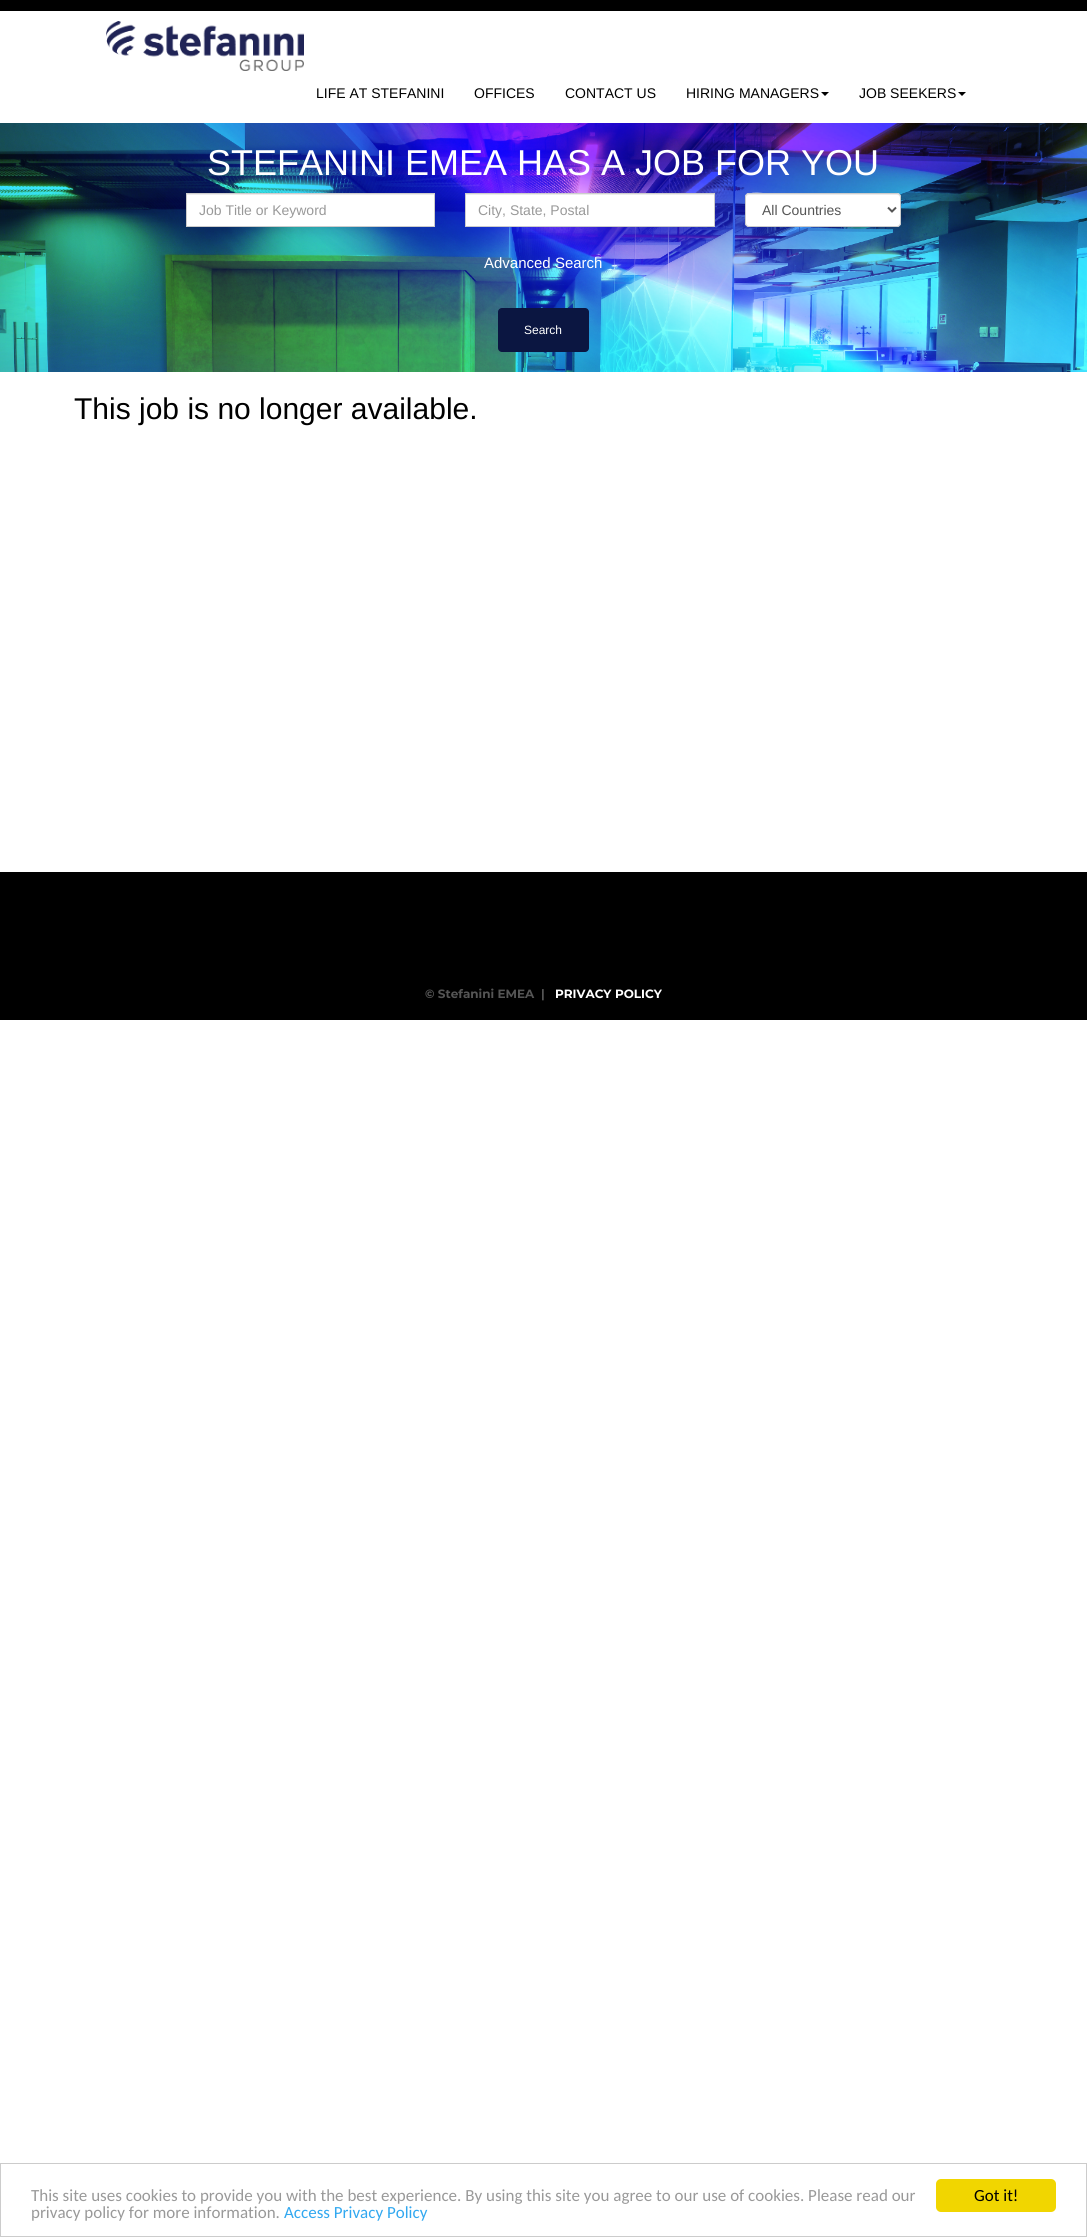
import math
import cairocffi as cairo

surface = cairo.ImageSurface(cairo.FORMAT_RGB24, 1087, 2237)
cr = cairo.Context(surface)
options = cairo.FontOptions()
options.set_hint_metrics(cairo.HINT_METRICS_OFF)
options.set_hint_style(cairo.HINT_STYLE_NONE)
cr.set_font_options(options)
cr.set_miter_limit(4)


def use_color(code):
    cr.set_source_rgb(*(v / 255 for v in bytes.fromhex(code[-6:])))


def round_rect(x, y, w, h, r):
    cr.new_sub_path()
    for i, (u, v) in enumerate([(x + w - r, y + h - r), (x + r, y + h - r), (x + r, y + r), (x + w - r, y + r)]):
        cr.arc(u, v, r, i * math.pi / 2, (i + 1) * math.pi / 2)
    cr.close_path()


def picture(path, x, y, w, h):
    cr.save()
    cr.set_source_surface(cairo.ImageSurface.create_from_png(path), x, y)
    cr.rectangle(x, y, w, h)
    cr.fill()
    cr.restore()


use_color("#ffffff")
cr.paint()
use_color("#000000")
cr.rectangle(0, 0, 1087, 11)
cr.fill()
picture("img1.png", 106, 21, 198, 50)
cr.select_font_face("Liberation Sans")
cr.set_font_size(14)
cr.move_to(316, 98)
cr.show_text("LIFE AT STEFANINI")
cr.move_to(474, 98)
cr.show_text("OFFICES")
cr.move_to(565, 98)
cr.show_text("CONTACT US")
cr.move_to(686, 98)
cr.show_text("HIRING MANAGERS")
cr.new_path()
cr.move_to(821, 92)
cr.line_to(829, 92)
cr.line_to(825, 96)
cr.close_path()
cr.fill()
cr.move_to(859, 98)
cr.show_text("JOB SEEKERS")
cr.new_path()
cr.move_to(958, 92)
cr.line_to(966, 92)
cr.line_to(962, 96)
cr.close_path()
cr.fill()
picture("img2.png", 0, 123, 1087, 249)
cr.set_font_size(36)
use_color("#ffffff")
cr.move_to(207, 175)
cr.show_text("STEFANINI EMEA HAS A JOB FOR YOU")
cr.rectangle(187, 195, 247, 31)
cr.fill()
use_color("#ececec")
cr.rectangle(187, 194, 247, 1)
cr.fill()
cr.rectangle(186.5, 193.5, 248, 33)
use_color("#cccccc")
cr.set_line_width(1)
cr.stroke()
cr.set_font_size(14)
use_color("#999999")
cr.move_to(199, 215)
cr.show_text("Job Title or Keyword")
use_color("#ffffff")
cr.rectangle(466, 195, 248, 31)
cr.fill()
use_color("#ececec")
cr.rectangle(466, 194, 248, 1)
cr.fill()
cr.rectangle(465.5, 193.5, 249, 33)
use_color("#cccccc")
cr.stroke()
use_color("#999999")
cr.move_to(478, 215)
cr.show_text("City, State, Postal")
use_color("#ffffff")
round_rect(745, 193, 156, 34, 4)
cr.fill()
use_color("#ececec")
cr.new_path()
cr.move_to(749, 195)
cr.line_to(897, 195)
cr.curve_to(899, 195, 900, 196, 900, 198)
cr.curve_to(900, 196, 900, 195, 898, 194)
cr.line_to(774, 194)
cr.curve_to(766, 194, 746, 189, 746, 198)
cr.curve_to(746, 196, 747, 195, 749, 195)
cr.close_path()
cr.fill()
round_rect(745.5, 193.5, 155, 33, 3.5)
use_color("#cccccc")
cr.stroke()
cr.new_path()
cr.move_to(888, 207.5)
cr.line_to(892, 211.5)
cr.line_to(896, 207.5)
use_color("#555555")
cr.set_line_width(2)
cr.stroke()
cr.move_to(762, 215)
cr.show_text("All Countries")
cr.set_font_size(15)
use_color("#ffffff")
cr.move_to(484, 268)
cr.show_text("Advanced Search")
use_color("#0b1641")
round_rect(498, 308, 91, 44, 4)
cr.fill()
cr.set_font_size(12)
use_color("#ffffff")
cr.move_to(524, 334)
cr.show_text("Search")
cr.set_font_size(30)
use_color("#000000")
cr.move_to(74, 419)
cr.show_text("This job is no longer available.")
cr.rectangle(0, 872, 1087, 148)
cr.fill()
cr.select_font_face("Montserrat", cairo.FONT_SLANT_NORMAL, cairo.FONT_WEIGHT_BOLD)
cr.set_font_size(12)
use_color("#555555")
cr.move_to(425, 998)
cr.show_text("© Stefanini EMEA  |")
use_color("#ffffff")
cr.move_to(555, 998)
cr.show_text("PRIVACY POLICY")
cr.rectangle(0.5, 2163.5, 1086, 73)
use_color("#cccccc")
cr.set_line_width(1)
cr.stroke()
cr.select_font_face("Carlito")
cr.set_font_size(17)
use_color("#999999")
cr.move_to(31, 2201)
cr.show_text("This site uses cookies to provide you with the best experience. By using this site you agree to our use of cookies. Please read our")
cr.move_to(31, 2218)
cr.show_text("privacy policy for more information.")
use_color("#31a8f0")
cr.move_to(284, 2218)
cr.show_text("Access Privacy Policy")
use_color("#f1d600")
round_rect(936, 2179, 120, 33, 5)
cr.fill()
use_color("#000000")
cr.move_to(974, 2201)
cr.show_text("Got it!")
surface.write_to_png("result.png")
